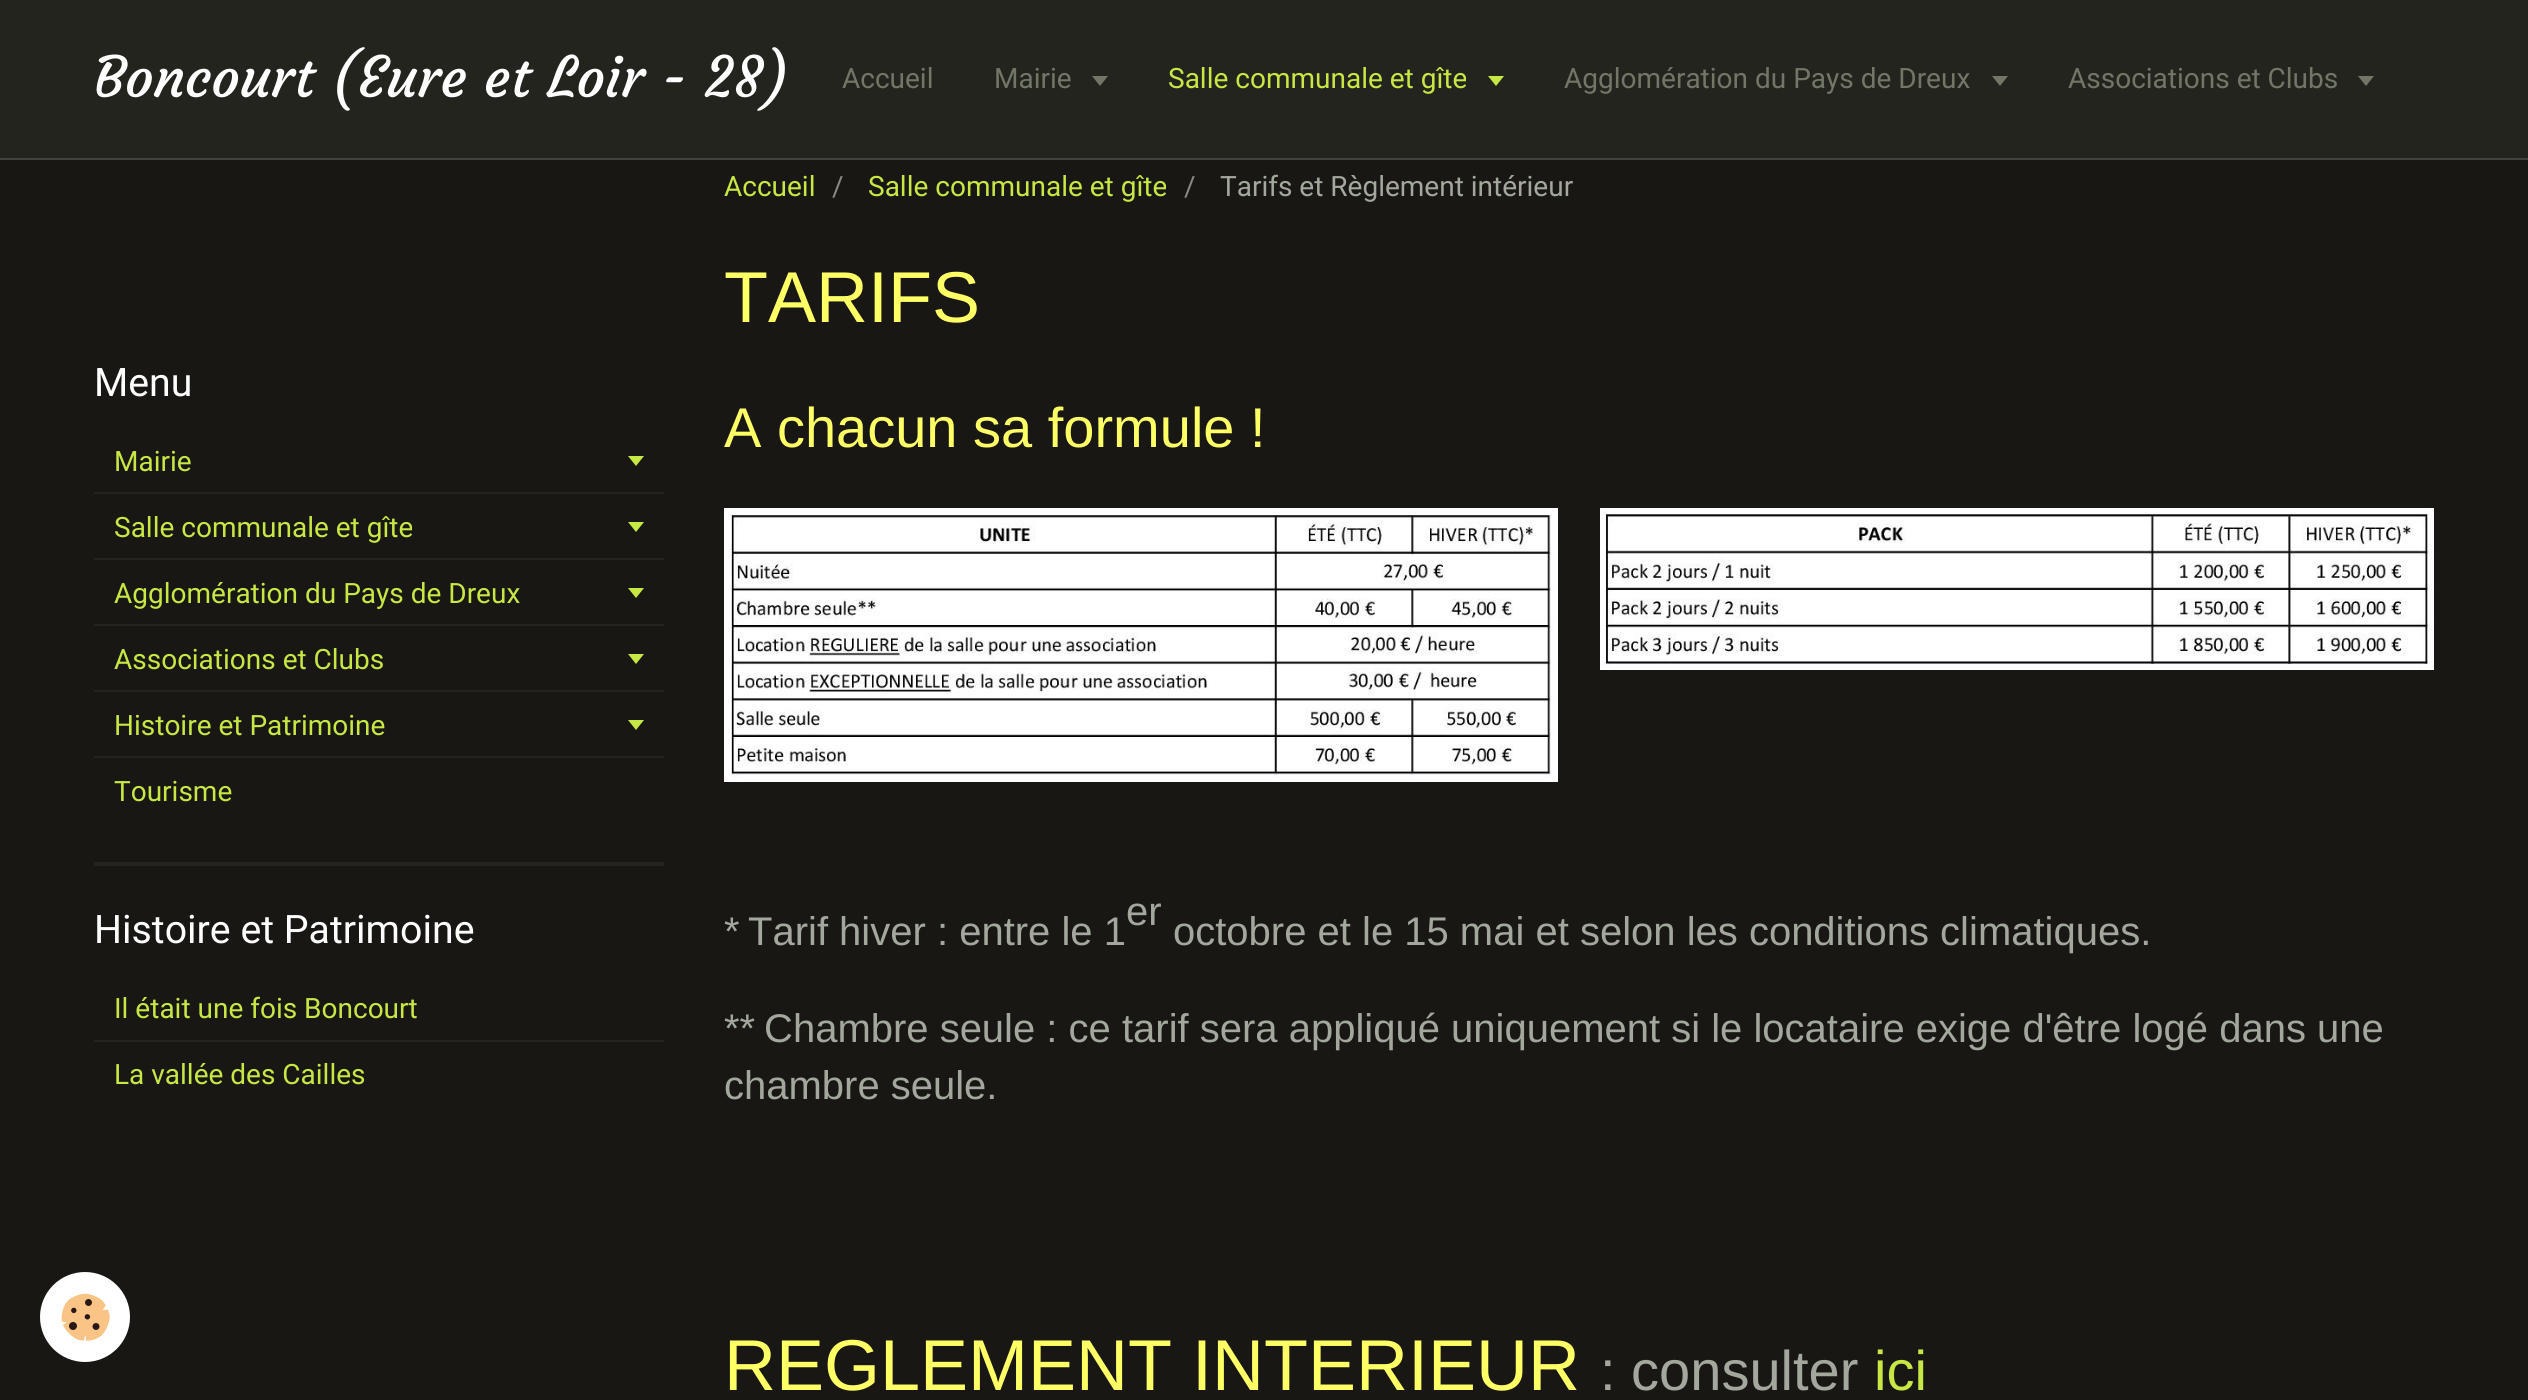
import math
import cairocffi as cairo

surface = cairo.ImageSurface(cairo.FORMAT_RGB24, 2528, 1400)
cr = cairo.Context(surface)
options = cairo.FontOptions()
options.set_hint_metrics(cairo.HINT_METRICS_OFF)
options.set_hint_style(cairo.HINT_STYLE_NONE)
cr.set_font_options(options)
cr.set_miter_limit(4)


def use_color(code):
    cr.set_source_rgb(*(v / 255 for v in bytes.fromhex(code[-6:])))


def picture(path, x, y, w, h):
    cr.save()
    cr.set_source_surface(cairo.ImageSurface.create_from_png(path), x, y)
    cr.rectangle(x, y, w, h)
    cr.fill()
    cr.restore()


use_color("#181714")
cr.paint()
use_color("#24241f")
cr.rectangle(0, 0, 2528, 158)
cr.fill()
use_color("#41413d")
cr.rectangle(0, 158, 2528, 2)
cr.fill()
cr.select_font_face("Courgette")
cr.set_font_size(56)
use_color("#ffffff")
cr.move_to(94, 97)
cr.show_text("Boncourt (Eure et Loir - 28)")
cr.select_font_face("Roboto")
cr.set_font_size(28)
use_color("#717667")
cr.move_to(842, 88)
cr.show_text("Accueil")
cr.move_to(994, 88)
cr.show_text("Mairie")
cr.new_path()
cr.move_to(1092, 76)
cr.line_to(1108, 76)
cr.line_to(1100, 86)
cr.close_path()
cr.fill()
use_color("#c7e744")
cr.move_to(1168, 88)
cr.show_text("Salle communale et gîte")
cr.new_path()
cr.move_to(1488, 76)
cr.line_to(1504, 76)
cr.line_to(1496, 86)
cr.close_path()
cr.fill()
use_color("#717667")
cr.move_to(1564, 88)
cr.show_text("Agglomération du Pays de Dreux")
cr.new_path()
cr.move_to(1992, 76)
cr.line_to(2008, 76)
cr.line_to(2000, 86)
cr.close_path()
cr.fill()
cr.move_to(2068, 88)
cr.show_text("Associations et Clubs")
cr.new_path()
cr.move_to(2358, 76)
cr.line_to(2374, 76)
cr.line_to(2366, 86)
cr.close_path()
cr.fill()
use_color("#ffffff")
cr.arc(85, 1317, 45, 0, 2 * math.pi)
cr.fill()
picture("img1.png", 61, 1293, 49, 48)
use_color("#25231f")
cr.rectangle(94, 862, 570, 4)
cr.fill()
cr.set_font_size(39.25)
use_color("#ffffff")
cr.move_to(94, 396)
cr.show_text("Menu")
use_color("#25231f")
cr.rectangle(94, 492, 570, 2)
cr.fill()
cr.set_font_size(28)
use_color("#c7e744")
cr.move_to(114, 471)
cr.show_text("Mairie")
cr.new_path()
cr.move_to(628, 456)
cr.line_to(644, 456)
cr.line_to(636, 466)
cr.close_path()
cr.fill()
use_color("#25231f")
cr.rectangle(94, 558, 570, 2)
cr.fill()
use_color("#c7e744")
cr.move_to(114, 537)
cr.show_text("Salle communale et gîte")
cr.new_path()
cr.move_to(628, 522)
cr.line_to(644, 522)
cr.line_to(636, 532)
cr.close_path()
cr.fill()
use_color("#25231f")
cr.rectangle(94, 624, 570, 2)
cr.fill()
use_color("#c7e744")
cr.move_to(114, 603)
cr.show_text("Agglomération du Pays de Dreux")
cr.new_path()
cr.move_to(628, 588)
cr.line_to(644, 588)
cr.line_to(636, 598)
cr.close_path()
cr.fill()
use_color("#25231f")
cr.rectangle(94, 690, 570, 2)
cr.fill()
use_color("#c7e744")
cr.move_to(114, 669)
cr.show_text("Associations et Clubs")
cr.new_path()
cr.move_to(628, 654)
cr.line_to(644, 654)
cr.line_to(636, 664)
cr.close_path()
cr.fill()
use_color("#25231f")
cr.rectangle(94, 756, 570, 2)
cr.fill()
use_color("#c7e744")
cr.move_to(114, 735)
cr.show_text("Histoire et Patrimoine")
cr.new_path()
cr.move_to(628, 720)
cr.line_to(644, 720)
cr.line_to(636, 730)
cr.close_path()
cr.fill()
cr.move_to(114, 801)
cr.show_text("Tourisme")
cr.set_font_size(39.25)
use_color("#ffffff")
cr.move_to(94, 943)
cr.show_text("Histoire et Patrimoine")
use_color("#25231f")
cr.rectangle(94, 1040, 570, 2)
cr.fill()
cr.set_font_size(28)
use_color("#c7e744")
cr.move_to(114, 1018)
cr.show_text("Il était une fois Boncourt")
cr.move_to(114, 1084)
cr.show_text("La vallée des Cailles")
cr.move_to(724, 196)
cr.show_text("Accueil")
use_color("#888a82")
cr.move_to(832, 196)
cr.show_text("/")
use_color("#c7e744")
cr.move_to(868, 196)
cr.show_text("Salle communale et gîte")
use_color("#888a82")
cr.move_to(1184, 196)
cr.show_text("/")
use_color("#a4a79d")
cr.move_to(1220, 196)
cr.show_text("Tarifs et Règlement intérieur")
cr.select_font_face("Liberation Sans")
cr.set_font_size(72)
use_color("#ffff66")
cr.move_to(724, 322)
cr.show_text("TARIFS")
cr.set_font_size(56)
cr.move_to(724, 447)
cr.show_text("A chacun sa formule !")
picture("img2.png", 724, 508, 834, 274)
picture("img3.png", 1600, 508, 834, 162)
cr.set_font_size(40)
use_color("#a4a79d")
cr.move_to(724, 945)
cr.show_text("*")
cr.move_to(748, 945)
cr.show_text("Tarif hiver : entre le 1")
cr.move_to(1126, 925)
cr.show_text("er")
cr.move_to(1173, 945)
cr.show_text("octobre et le 15 mai et selon les conditions climatiques.")
cr.move_to(724, 1042)
cr.show_text("**")
cr.move_to(764, 1042)
cr.show_text("Chambre seule : ce tarif sera appliqué uniquement si le locataire exige d'être logé dans une")
cr.move_to(724, 1099)
cr.show_text("chambre seule.")
cr.set_font_size(72)
use_color("#ffff66")
cr.move_to(724, 1390)
cr.show_text("REGLEMENT INTERIEUR")
cr.set_font_size(56)
use_color("#a4a79d")
cr.move_to(1600, 1390)
cr.show_text(": consulter")
use_color("#c7e744")
cr.move_to(1874, 1390)
cr.show_text("ici")
surface.write_to_png("result.png")
